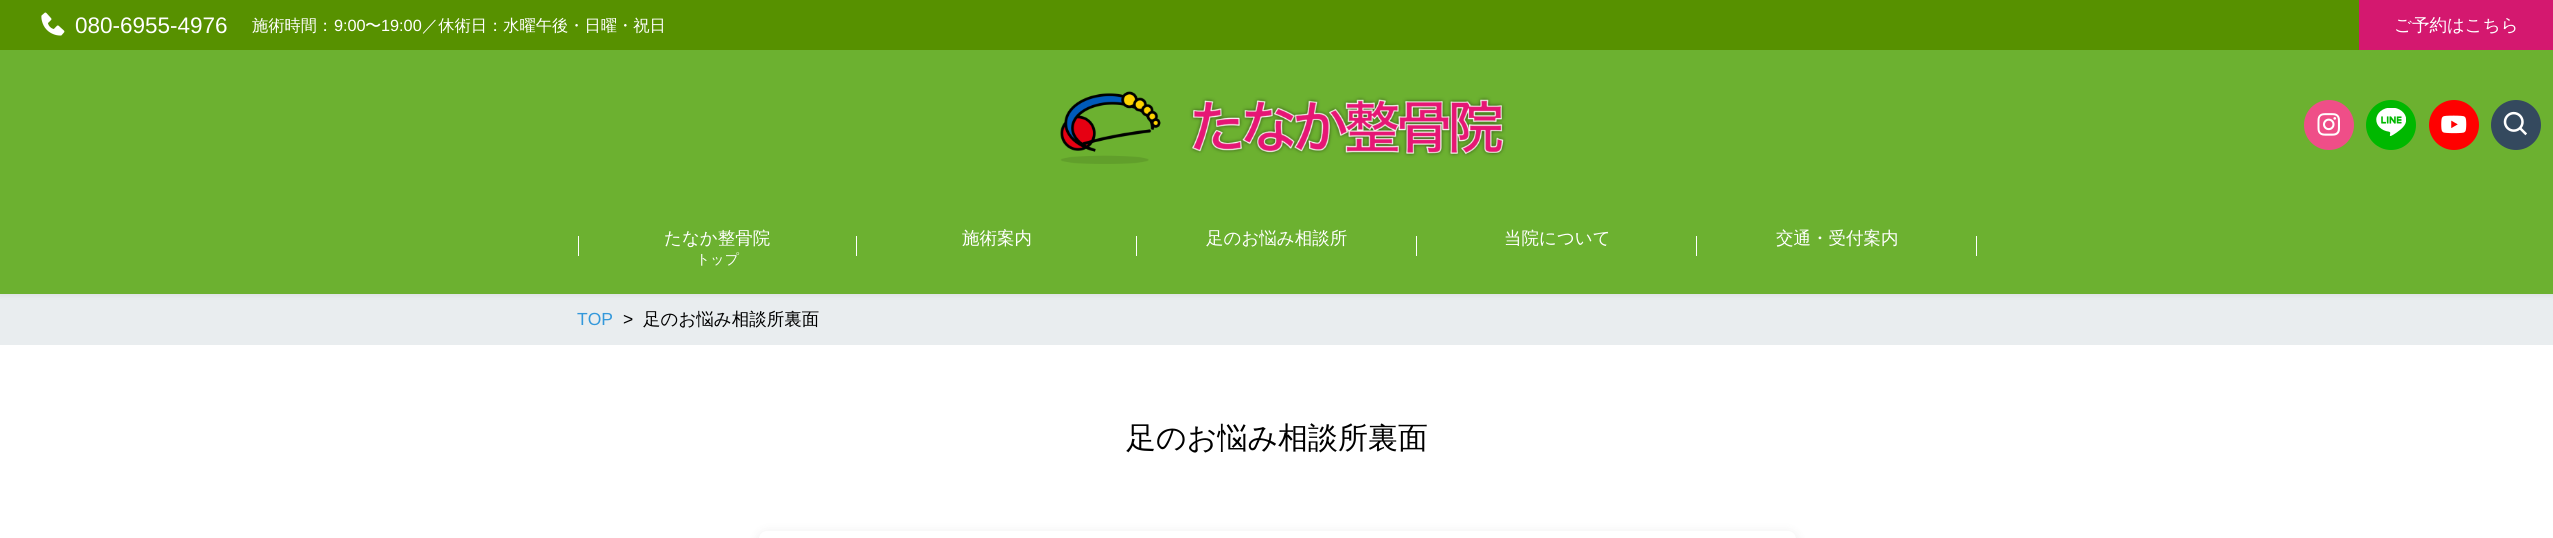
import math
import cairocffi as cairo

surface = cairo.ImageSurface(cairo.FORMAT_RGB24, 2553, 538)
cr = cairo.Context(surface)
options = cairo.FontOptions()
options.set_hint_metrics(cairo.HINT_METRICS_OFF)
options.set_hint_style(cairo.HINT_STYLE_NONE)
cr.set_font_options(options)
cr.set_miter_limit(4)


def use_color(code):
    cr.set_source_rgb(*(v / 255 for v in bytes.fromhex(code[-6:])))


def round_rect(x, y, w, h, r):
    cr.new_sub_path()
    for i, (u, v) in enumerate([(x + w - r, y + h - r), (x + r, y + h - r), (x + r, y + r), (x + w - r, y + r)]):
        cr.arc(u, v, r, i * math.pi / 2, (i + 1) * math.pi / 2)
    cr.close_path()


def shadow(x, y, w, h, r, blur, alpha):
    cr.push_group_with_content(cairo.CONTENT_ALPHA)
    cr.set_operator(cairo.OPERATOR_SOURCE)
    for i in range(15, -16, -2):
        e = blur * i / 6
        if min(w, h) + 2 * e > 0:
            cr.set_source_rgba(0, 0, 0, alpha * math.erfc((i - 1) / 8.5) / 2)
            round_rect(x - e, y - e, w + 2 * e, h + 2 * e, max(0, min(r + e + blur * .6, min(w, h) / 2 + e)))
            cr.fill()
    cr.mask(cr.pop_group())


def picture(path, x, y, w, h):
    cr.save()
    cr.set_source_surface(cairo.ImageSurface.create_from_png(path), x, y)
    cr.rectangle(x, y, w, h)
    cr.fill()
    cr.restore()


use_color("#ffffff")
cr.paint()
use_color("#e9edef")
cr.rectangle(0, 294, 2553, 51)
cr.fill()
use_color("#000000")
shadow(0, 0, 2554, 294, 0, 3, 0.1)
use_color("#579100")
cr.rectangle(0, 0, 2359, 50)
cr.fill()
picture("img1.png", 41, 12, 24, 24)
cr.select_font_face("Liberation Sans")
cr.set_font_size(22.5)
use_color("#ffffff")
cr.move_to(75, 33)
cr.show_text("080-6955-4976")
cr.select_font_face("WenQuanYi Zen Hei Medium")
cr.set_font_size(16.25)
cr.move_to(252, 31)
cr.show_text("施術時間：")
cr.select_font_face("Liberation Sans")
cr.move_to(334, 31)
cr.show_text("9:00")
cr.select_font_face("WenQuanYi Zen Hei Medium")
cr.move_to(365, 31)
cr.show_text("〜")
cr.select_font_face("Liberation Sans")
cr.move_to(381, 31)
cr.show_text("19:00")
cr.select_font_face("WenQuanYi Zen Hei Medium")
cr.move_to(422, 31)
cr.show_text("／休術日：水曜午後・日曜・祝日")
use_color("#d4186f")
cr.rectangle(2359, 0, 194, 50)
cr.fill()
cr.set_font_size(17.5)
use_color("#ffffff")
cr.move_to(2394, 31)
cr.show_text("ご予約はこちら")
use_color("#6cb130")
cr.rectangle(0, 50, 2553, 244)
cr.fill()
picture("img2.png", 1060, 91, 446, 73)
use_color("#ef4e88")
cr.arc(2329, 125, 25, 0, 2 * math.pi)
cr.fill()
picture("img3.png", 2317, 113, 23, 23)
use_color("#00b800")
cr.arc(2391, 125, 25, 0, 2 * math.pi)
cr.fill()
picture("img4.png", 2376, 108, 30, 28)
use_color("#ff0000")
cr.arc(2454, 125, 25, 0, 2 * math.pi)
cr.fill()
picture("img5.png", 2441, 115, 26, 19)
use_color("#34495e")
cr.arc(2516, 125, 25, 0, 2 * math.pi)
cr.fill()
picture("img6.png", 2503, 111, 24, 25)
use_color("#ffffff")
cr.rectangle(578, 236, 1, 20)
cr.fill()
cr.move_to(664, 244)
cr.show_text("たなか整骨院")
cr.set_font_size(14)
cr.move_to(696, 264)
cr.show_text("トップ")
cr.rectangle(856, 236, 1, 20)
cr.fill()
cr.set_font_size(17.5)
cr.move_to(962, 244)
cr.show_text("施術案内")
cr.rectangle(1136, 236, 1, 20)
cr.fill()
cr.move_to(1206, 244)
cr.show_text("足のお悩み相談所")
cr.rectangle(1416, 236, 1, 20)
cr.fill()
cr.move_to(1504, 244)
cr.show_text("当院について")
cr.rectangle(1696, 236, 1, 20)
cr.fill()
cr.move_to(1776, 244)
cr.show_text("交通・受付案内")
cr.rectangle(1976, 236, 1, 20)
cr.fill()
cr.select_font_face("Liberation Sans")
use_color("#3398db")
cr.move_to(577, 325)
cr.show_text("TOP")
use_color("#000000")
cr.move_to(623, 325)
cr.show_text(">")
cr.select_font_face("WenQuanYi Zen Hei Medium")
cr.move_to(643, 325)
cr.show_text("足のお悩み相談所裏面")
cr.set_font_size(30)
cr.move_to(1126, 448)
cr.show_text("足のお悩み相談所裏面")
use_color("#000000")
shadow(759, 534, 1037, 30, 8, 6, 0.1)
use_color("#ffffff")
round_rect(759, 531, 1037, 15, 8)
cr.fill()
surface.write_to_png("result.png")
